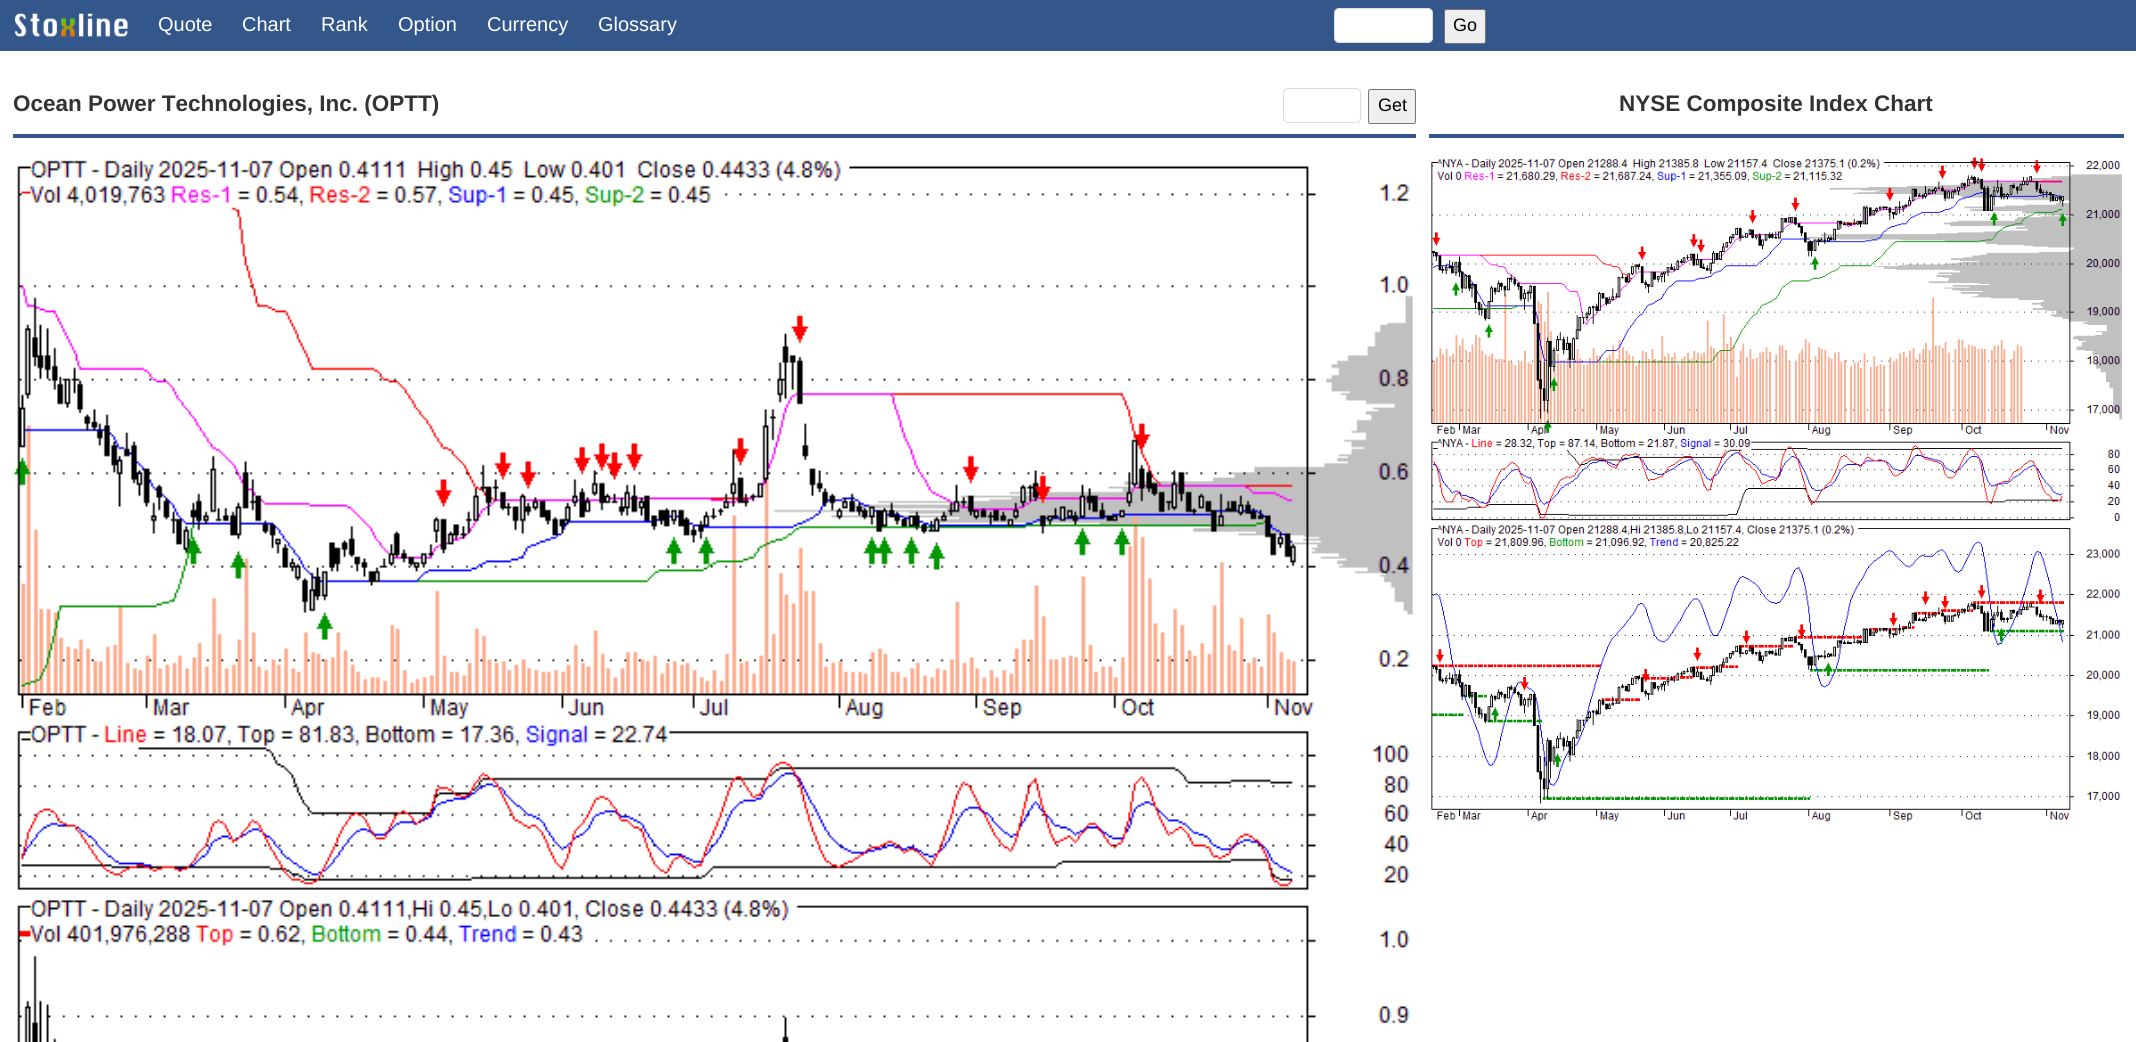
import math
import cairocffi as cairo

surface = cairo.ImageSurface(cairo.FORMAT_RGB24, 2136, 1042)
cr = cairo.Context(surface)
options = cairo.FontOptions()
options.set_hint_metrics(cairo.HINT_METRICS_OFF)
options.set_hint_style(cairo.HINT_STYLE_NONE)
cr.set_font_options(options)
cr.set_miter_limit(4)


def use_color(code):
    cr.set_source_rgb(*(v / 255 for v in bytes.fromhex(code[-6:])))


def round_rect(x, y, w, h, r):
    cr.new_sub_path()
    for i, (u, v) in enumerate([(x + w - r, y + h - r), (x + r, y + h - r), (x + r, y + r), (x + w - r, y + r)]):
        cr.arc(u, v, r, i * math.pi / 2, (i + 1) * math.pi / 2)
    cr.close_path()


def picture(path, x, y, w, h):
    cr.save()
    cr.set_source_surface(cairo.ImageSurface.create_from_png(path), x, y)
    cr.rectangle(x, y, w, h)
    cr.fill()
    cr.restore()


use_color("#ffffff")
cr.paint()
use_color("#33578a")
cr.rectangle(0, 0, 2136, 51)
cr.fill()
picture("img1.png", 15, 13, 113, 24)
cr.select_font_face("Liberation Sans")
cr.set_font_size(20)
use_color("#ffffff")
cr.move_to(158, 31)
cr.show_text("Quote")
cr.move_to(242, 31)
cr.show_text("Chart")
cr.move_to(321, 31)
cr.show_text("Rank")
cr.move_to(398, 31)
cr.show_text("Option")
cr.move_to(487, 31)
cr.show_text("Currency")
cr.move_to(598, 31)
cr.show_text("Glossary")
round_rect(1334.5, 8.5, 98, 34, 4.5)
cr.fill_preserve()
use_color("#dddddd")
cr.set_line_width(1)
cr.stroke()
use_color("#efefef")
round_rect(1444.5, 9.5, 41, 34, 2)
cr.fill_preserve()
use_color("#767676")
cr.stroke()
cr.set_font_size(18)
use_color("#000000")
cr.move_to(1453, 31)
cr.show_text("Go")
use_color("#33578a")
cr.rectangle(13, 134, 1403, 4)
cr.fill()
cr.select_font_face("Liberation Sans", cairo.FONT_SLANT_NORMAL, cairo.FONT_WEIGHT_BOLD)
cr.set_font_size(22.5)
use_color("#333333")
cr.move_to(13, 111)
cr.show_text("Ocean Power Technologies, Inc. (OPTT)")
round_rect(1283.5, 88.5, 77, 34, 4.5)
use_color("#dddddd")
cr.stroke()
use_color("#efefef")
round_rect(1368.5, 89.5, 47, 34, 2)
cr.fill_preserve()
use_color("#767676")
cr.stroke()
cr.select_font_face("Liberation Sans")
cr.set_font_size(18)
use_color("#000000")
cr.move_to(1378, 111)
cr.show_text("Get")
picture("img2.png", 14, 160, 1399, 882)
use_color("#33578a")
cr.rectangle(1429, 134, 695, 4)
cr.fill()
cr.select_font_face("Liberation Sans", cairo.FONT_SLANT_NORMAL, cairo.FONT_WEIGHT_BOLD)
cr.set_font_size(22.5)
use_color("#333333")
cr.move_to(1619, 111)
cr.show_text("NYSE Composite Index Chart")
picture("img3.png", 1431, 157, 691, 665)
surface.write_to_png("result.png")
